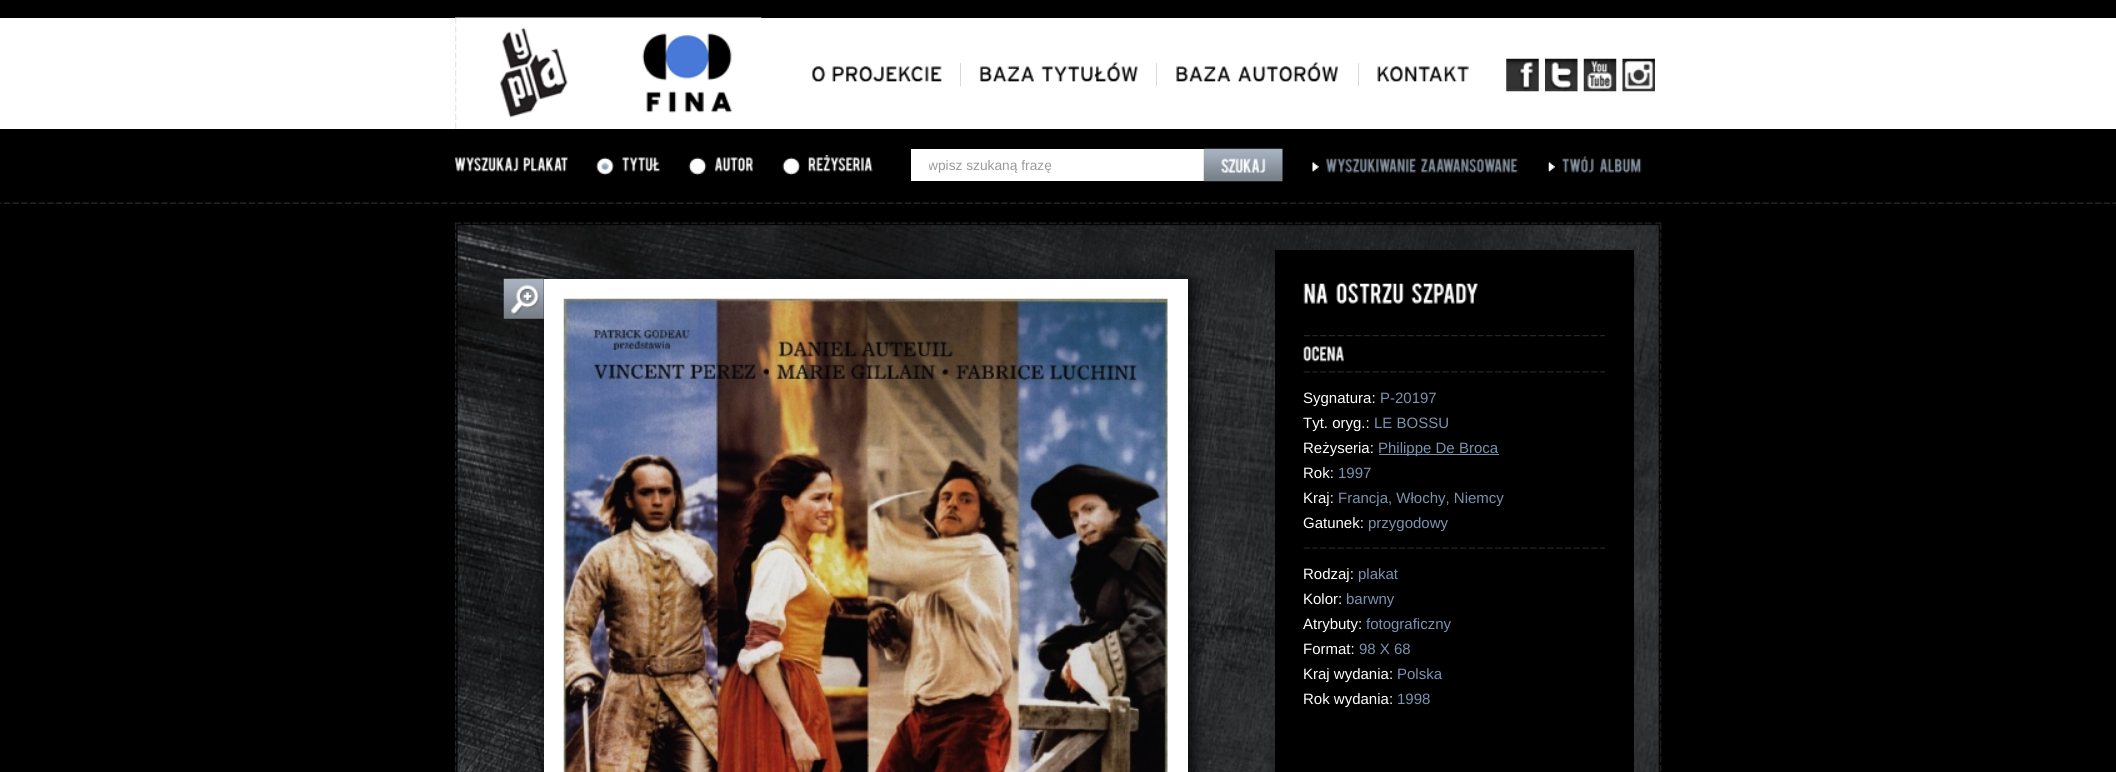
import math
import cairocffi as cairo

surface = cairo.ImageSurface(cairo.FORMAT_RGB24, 2116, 772)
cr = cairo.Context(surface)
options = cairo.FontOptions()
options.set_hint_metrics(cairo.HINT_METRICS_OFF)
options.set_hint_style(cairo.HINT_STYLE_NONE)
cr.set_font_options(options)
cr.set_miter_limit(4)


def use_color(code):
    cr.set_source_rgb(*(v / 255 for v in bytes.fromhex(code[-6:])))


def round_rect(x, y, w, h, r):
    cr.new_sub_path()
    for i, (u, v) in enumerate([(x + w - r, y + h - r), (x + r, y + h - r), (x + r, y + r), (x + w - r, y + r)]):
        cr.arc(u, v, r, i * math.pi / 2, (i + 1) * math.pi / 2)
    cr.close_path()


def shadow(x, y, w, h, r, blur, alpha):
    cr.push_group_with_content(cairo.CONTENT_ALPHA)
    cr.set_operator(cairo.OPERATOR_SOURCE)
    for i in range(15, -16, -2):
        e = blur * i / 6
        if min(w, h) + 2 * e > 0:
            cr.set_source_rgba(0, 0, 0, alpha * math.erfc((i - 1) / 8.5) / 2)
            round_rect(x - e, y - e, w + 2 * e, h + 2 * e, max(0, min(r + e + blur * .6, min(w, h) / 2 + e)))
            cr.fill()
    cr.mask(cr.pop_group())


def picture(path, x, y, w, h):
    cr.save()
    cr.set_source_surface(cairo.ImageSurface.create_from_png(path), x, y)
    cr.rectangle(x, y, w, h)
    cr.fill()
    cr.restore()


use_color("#000000")
cr.paint()
use_color("#ffffff")
cr.rectangle(0, 18, 2116, 111)
cr.fill()
picture("img1.png", 455, 17, 155, 112)
picture("img2.png", 610, 17, 152, 96)
use_color("#d9d9d9")
cr.rectangle(960, 63, 1, 23)
cr.fill()
picture("img3.png", 811, 66, 15, 16)
picture("img4.png", 832, 66, 110, 16)
cr.rectangle(1156, 63, 1, 23)
cr.fill()
picture("img5.png", 979, 66, 55, 16)
picture("img6.png", 1041, 62, 97, 20)
cr.rectangle(1358, 63, 1, 23)
cr.fill()
picture("img7.png", 1176, 66, 55, 16)
picture("img8.png", 1237, 62, 102, 20)
picture("img9.png", 1377, 66, 92, 16)
picture("img10.png", 1506, 58, 33, 34)
picture("img11.png", 1545, 58, 33, 34)
picture("img12.png", 1583, 58, 34, 34)
picture("img13.png", 1622, 58, 33, 34)
picture("img14.png", 0, 202, 2116, 2)
picture("img15.png", 454, 157, 65, 15)
picture("img16.png", 523, 157, 45, 15)
picture("img17.png", 596, 157, 18, 18)
picture("img18.png", 622, 157, 39, 15)
picture("img19.png", 688, 157, 19, 18)
picture("img20.png", 714, 157, 40, 15)
picture("img21.png", 782, 157, 18, 18)
picture("img22.png", 808, 154, 65, 18)
use_color("#ffffff")
cr.rectangle(911, 149, 293, 32)
cr.fill()
cr.save()
cr.rectangle(929, 149, 257, 32)
cr.clip()
cr.select_font_face("Liberation Sans")
cr.set_font_size(13.75)
use_color("#9a9a9a")
cr.move_to(928, 170)
cr.show_text("wpisz szukaną frazę")
cr.restore()
picture("img23.png", 1203, 148, 80, 34)
picture("img24.png", 1312, 162, 7, 10)
picture("img25.png", 1326, 158, 91, 15)
picture("img26.png", 1421, 158, 97, 15)
picture("img27.png", 1548, 162, 7, 10)
picture("img28.png", 1562, 156, 32, 17)
picture("img29.png", 1599, 158, 43, 15)
picture("img30.png", 455, 222, 1207, 550)
use_color("#000000")
shadow(548, 283, 643, 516, 0, 9, 1)
use_color("#ffffff")
cr.rectangle(544, 279, 644, 493)
cr.fill()
picture("img31.png", 503, 278, 41, 41)
picture("img32.png", 563, 298, 605, 474)
use_color("#000000")
cr.rectangle(1275, 250, 359, 522)
cr.fill()
picture("img33.png", 1303, 283, 25, 21)
picture("img34.png", 1336, 282, 68, 22)
picture("img35.png", 1411, 282, 67, 22)
picture("img36.png", 1303, 335, 302, 2)
picture("img37.png", 1303, 346, 41, 16)
picture("img38.png", 1303, 371, 302, 2)
cr.select_font_face("Liberation Sans")
cr.set_font_size(15)
use_color("#ffffff")
cr.move_to(1303, 403)
cr.show_text("Sygnatura:")
use_color("#7a93af")
cr.move_to(1380, 403)
cr.show_text("P-20197")
use_color("#ffffff")
cr.move_to(1303, 428)
cr.show_text("Tyt. oryg.:")
use_color("#7a93af")
cr.move_to(1374, 428)
cr.show_text("LE BOSSU")
use_color("#ffffff")
cr.move_to(1303, 453)
cr.show_text("Reżyseria:")
use_color("#7a93af")
cr.rectangle(1379, 454, 120, 1)
cr.fill()
cr.move_to(1378, 453)
cr.show_text("Philippe De Broca")
use_color("#ffffff")
cr.move_to(1303, 478)
cr.show_text("Rok:")
use_color("#7a93af")
cr.move_to(1338, 478)
cr.show_text("1997")
use_color("#ffffff")
cr.move_to(1303, 503)
cr.show_text("Kraj:")
use_color("#7a93af")
cr.move_to(1338, 503)
cr.show_text("Francja, Włochy, Niemcy")
use_color("#ffffff")
cr.move_to(1303, 528)
cr.show_text("Gatunek:")
use_color("#7a93af")
cr.move_to(1368, 528)
cr.show_text("przygodowy")
picture("img39.png", 1303, 547, 302, 2)
use_color("#ffffff")
cr.move_to(1303, 579)
cr.show_text("Rodzaj:")
use_color("#7a93af")
cr.move_to(1358, 579)
cr.show_text("plakat")
use_color("#ffffff")
cr.move_to(1303, 604)
cr.show_text("Kolor:")
use_color("#7a93af")
cr.move_to(1346, 604)
cr.show_text("barwny")
use_color("#ffffff")
cr.move_to(1303, 629)
cr.show_text("Atrybuty:")
use_color("#7a93af")
cr.move_to(1366, 629)
cr.show_text("fotograficzny")
use_color("#ffffff")
cr.move_to(1303, 654)
cr.show_text("Format:")
use_color("#7a93af")
cr.move_to(1359, 654)
cr.show_text("98 X 68")
use_color("#ffffff")
cr.move_to(1303, 679)
cr.show_text("Kraj wydania:")
use_color("#7a93af")
cr.move_to(1397, 679)
cr.show_text("Polska")
use_color("#ffffff")
cr.move_to(1303, 704)
cr.show_text("Rok wydania:")
use_color("#7a93af")
cr.move_to(1397, 704)
cr.show_text("1998")
surface.write_to_png("result.png")
